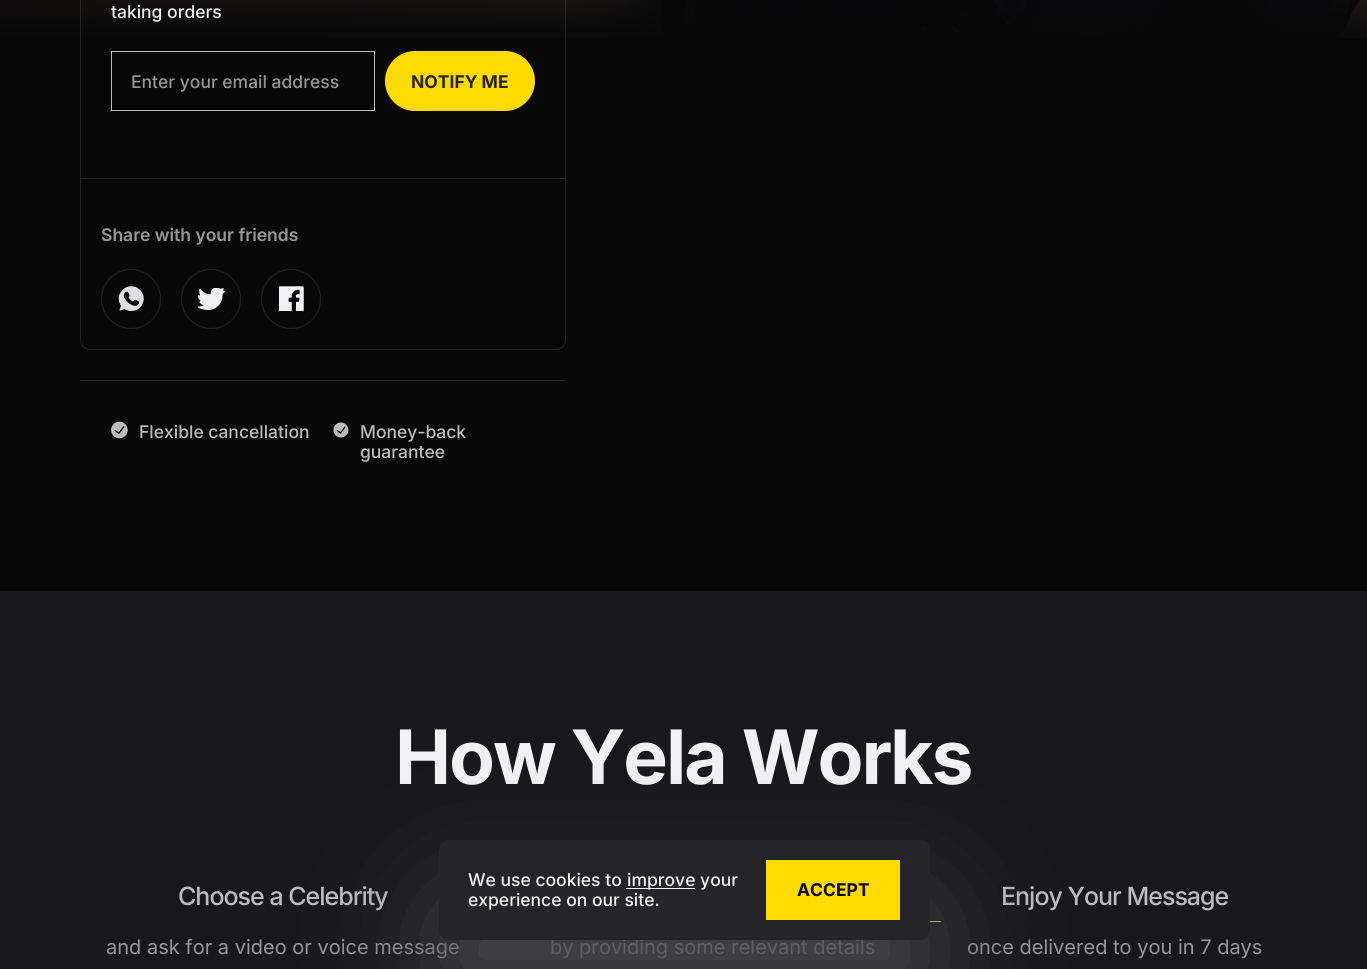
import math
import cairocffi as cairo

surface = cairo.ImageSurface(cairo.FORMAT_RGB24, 1367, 969)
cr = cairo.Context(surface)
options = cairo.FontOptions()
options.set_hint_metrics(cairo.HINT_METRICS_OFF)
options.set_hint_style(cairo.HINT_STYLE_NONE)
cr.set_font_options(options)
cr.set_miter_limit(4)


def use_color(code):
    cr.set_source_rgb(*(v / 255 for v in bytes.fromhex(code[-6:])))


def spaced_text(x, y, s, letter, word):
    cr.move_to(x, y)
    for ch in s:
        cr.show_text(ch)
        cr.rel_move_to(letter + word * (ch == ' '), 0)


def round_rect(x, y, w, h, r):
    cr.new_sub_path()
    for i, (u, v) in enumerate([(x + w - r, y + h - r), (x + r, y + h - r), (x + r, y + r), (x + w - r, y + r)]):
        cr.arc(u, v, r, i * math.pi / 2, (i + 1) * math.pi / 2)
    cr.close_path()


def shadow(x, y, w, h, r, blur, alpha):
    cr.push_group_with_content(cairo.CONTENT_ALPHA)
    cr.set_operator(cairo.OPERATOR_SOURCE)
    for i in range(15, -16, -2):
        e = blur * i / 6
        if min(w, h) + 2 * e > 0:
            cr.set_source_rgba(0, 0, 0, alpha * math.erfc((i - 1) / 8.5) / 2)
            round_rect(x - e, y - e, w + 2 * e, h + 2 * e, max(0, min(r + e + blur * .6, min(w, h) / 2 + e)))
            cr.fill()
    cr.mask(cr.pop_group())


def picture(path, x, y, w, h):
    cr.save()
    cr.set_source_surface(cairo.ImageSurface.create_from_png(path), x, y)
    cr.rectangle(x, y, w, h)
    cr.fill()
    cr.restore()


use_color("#070708")
cr.paint()
picture("img1.png", 0, 0, 1367, 38)
round_rect(80.5, -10.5, 485, 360, 9.5)
cr.set_source_rgba(1, 1, 1, 0.1)
cr.set_line_width(1)
cr.stroke()
cr.select_font_face("Inter Medium")
cr.set_font_size(17.5)
use_color("#f1f1f3")
cr.move_to(111, 18)
cr.show_text("taking orders")
cr.rectangle(111.5, 51.5, 263, 59)
use_color("#bbbbbf")
cr.stroke()
use_color("#969699")
cr.move_to(131, 88)
cr.show_text("Enter your email address")
use_color("#ffdb01")
round_rect(385, 51, 150, 60, 30)
cr.fill()
cr.select_font_face("Inter", cairo.FONT_SLANT_NORMAL, cairo.FONT_WEIGHT_BOLD)
use_color("#252526")
cr.move_to(411, 88)
cr.show_text("NOTIFY ME")
use_color("#212122")
cr.rectangle(81, 178, 484, 1)
cr.fill()
cr.select_font_face("Inter SemiBold")
use_color("#969699")
cr.move_to(101, 241)
cr.show_text("Share with your friends")
cr.new_path()
cr.arc(131, 299, 29.5, 0, 2 * math.pi)
use_color("#212122")
cr.stroke()
picture("img2.png", 118, 286, 26, 26)
cr.arc(211, 299, 29.5, 0, 2 * math.pi)
cr.stroke()
picture("img3.png", 198, 288, 27, 22)
cr.arc(291, 299, 29.5, 0, 2 * math.pi)
cr.stroke()
picture("img4.png", 279, 286, 25, 25)
use_color("#202021")
cr.rectangle(80, 380, 486, 1)
cr.fill()
picture("img5.png", 111, 421, 17, 18)
cr.select_font_face("Inter Medium")
use_color("#bbbbbf")
cr.move_to(139, 438)
cr.show_text("Flexible cancellation")
picture("img6.png", 333, 422, 16, 16)
cr.move_to(360, 438)
cr.show_text("Money-back")
cr.move_to(360, 458)
cr.show_text("guarantee")
use_color("#18181b")
cr.rectangle(0, 591, 1367, 378)
cr.fill()
cr.select_font_face("Inter", cairo.FONT_SLANT_NORMAL, cairo.FONT_WEIGHT_BOLD)
cr.set_font_size(75)
use_color("#f1f1f3")
spaced_text(395, 784, "How Yela Works", -2, 0)
cr.select_font_face("Inter Medium")
cr.set_font_size(25)
use_color("#bbbbbf")
spaced_text(178, 905, "Choose a Celebrity", -1, 0)
cr.select_font_face("Inter")
cr.set_font_size(20)
use_color("#969699")
cr.move_to(106, 954)
cr.show_text("and ask for a video or voice message")
use_color("#ffdb01")
cr.rectangle(930, 921, 11, 1)
cr.fill()
cr.select_font_face("Inter Medium")
cr.set_font_size(25)
use_color("#bbbbbf")
spaced_text(1001, 905, "Enjoy Your Message", -1, 0)
cr.select_font_face("Inter")
cr.set_font_size(20)
use_color("#969699")
cr.move_to(967, 954)
cr.show_text("once delivered to you in 7 days")
cr.move_to(550, 954)
cr.show_text("by providing some relevant details")
use_color("#4b4b4d")
shadow(449, 910, 471, 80, 0, 60, 1)
use_color("#242429")
round_rect(439, 840, 491, 100, 10)
cr.fill()
cr.select_font_face("Inter Medium")
cr.set_font_size(17.5)
use_color("#f1f1f3")
cr.move_to(468, 886)
cr.show_text("We use cookies to")
cr.rectangle(626, 888, 69, 1)
cr.fill()
cr.move_to(627, 886)
cr.show_text("improve your")
cr.move_to(468, 906)
cr.show_text("experience on our site.")
use_color("#ffdb01")
cr.rectangle(766, 860, 134, 60)
cr.fill()
cr.select_font_face("Inter", cairo.FONT_SLANT_NORMAL, cairo.FONT_WEIGHT_BOLD)
use_color("#070708")
cr.move_to(797, 896)
cr.show_text("ACCEPT")
surface.write_to_png("result.png")
